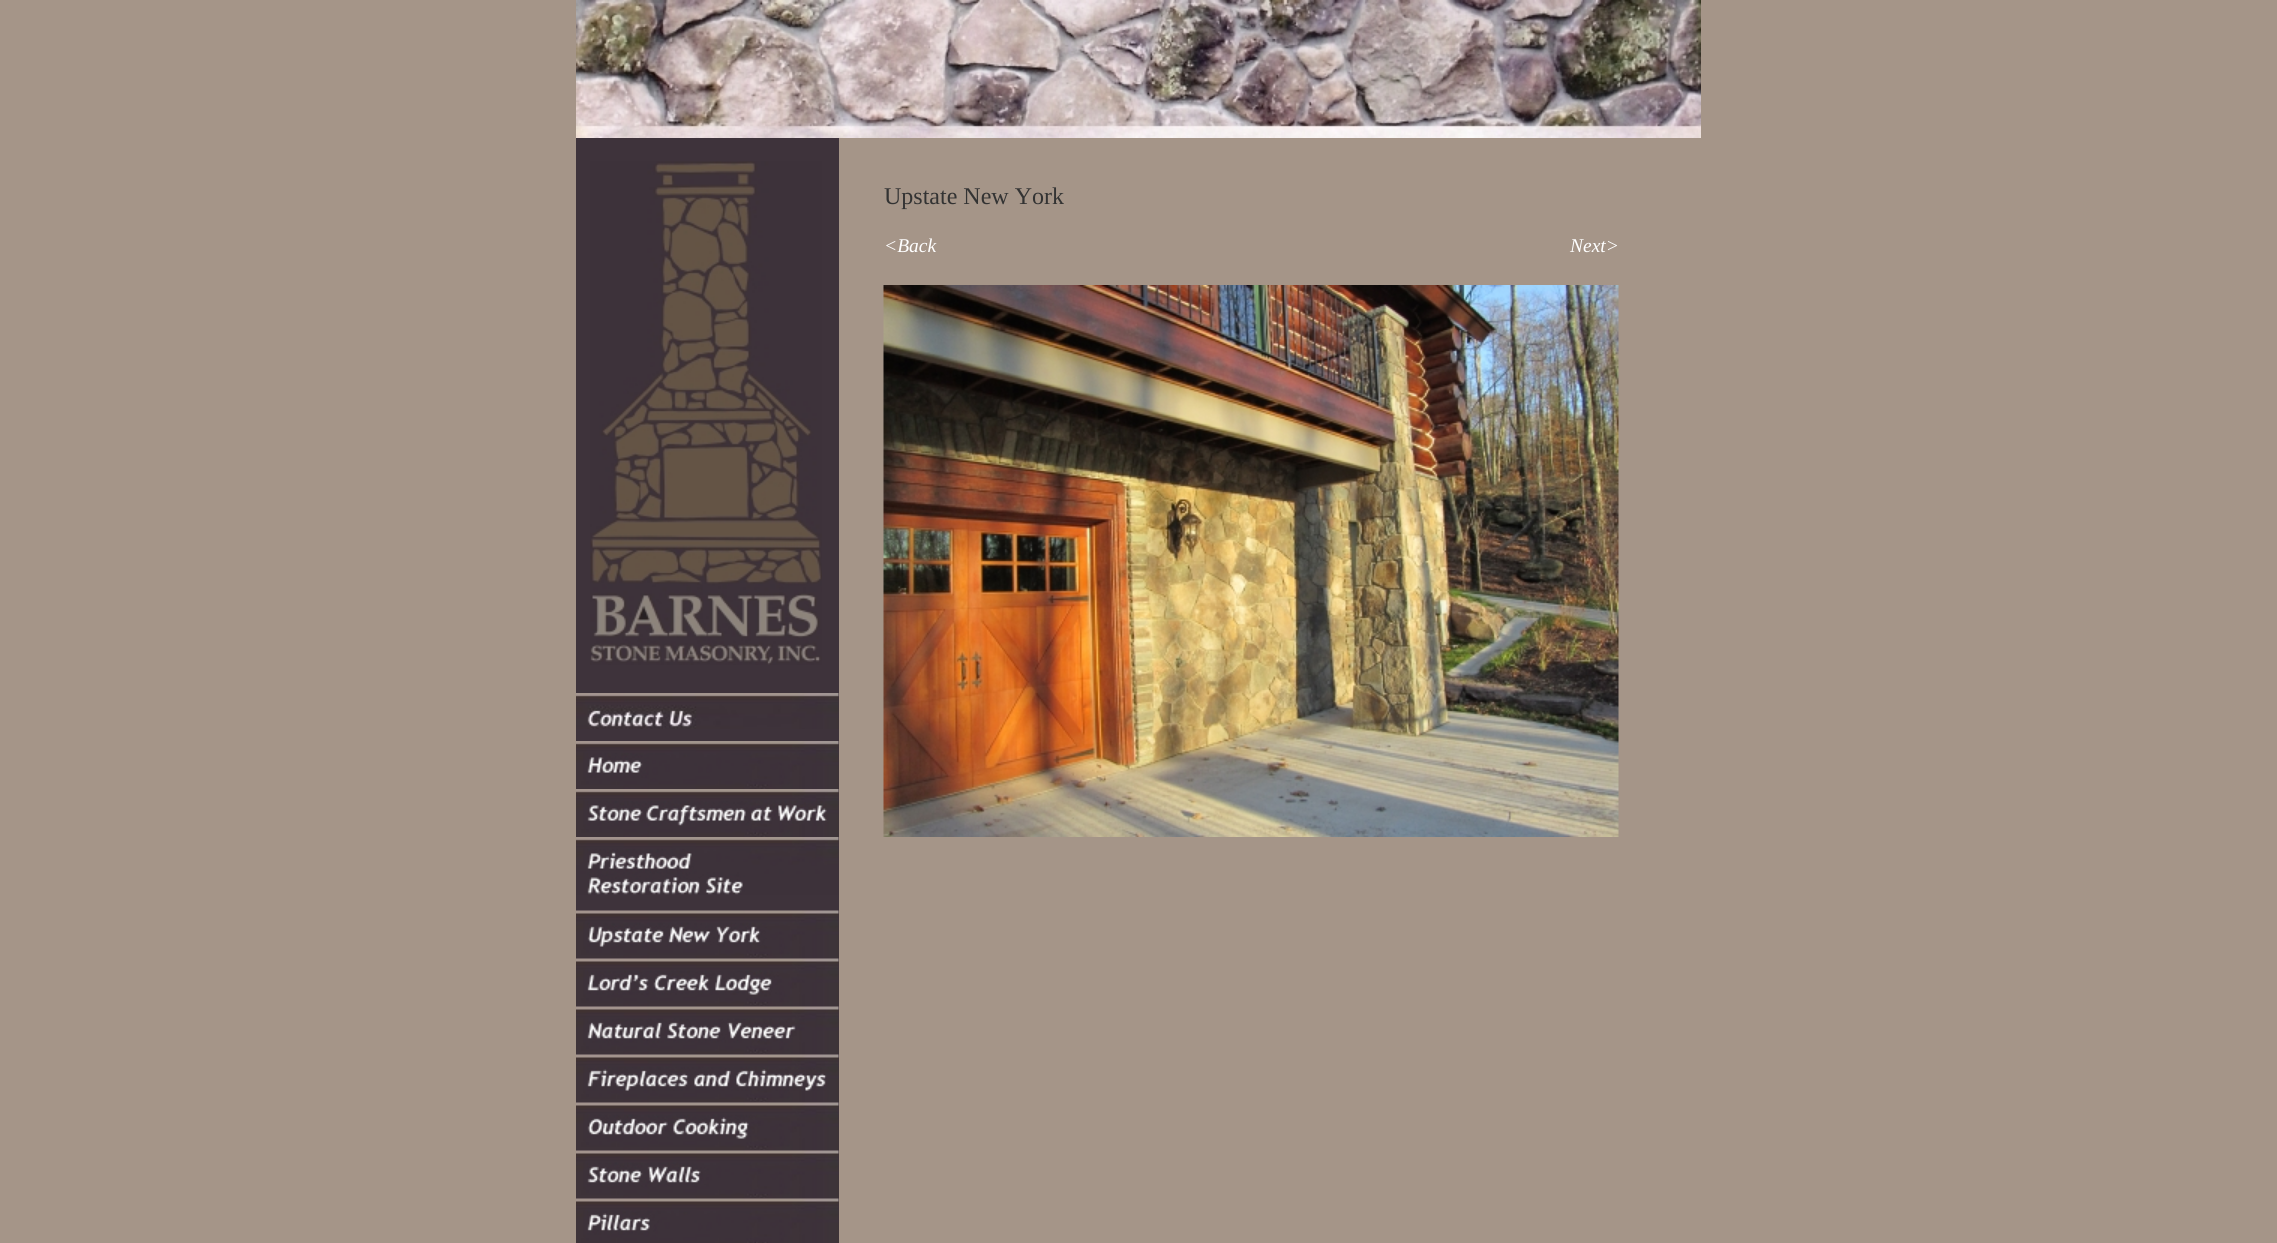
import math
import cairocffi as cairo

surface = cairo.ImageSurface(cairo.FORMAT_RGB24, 2277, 1243)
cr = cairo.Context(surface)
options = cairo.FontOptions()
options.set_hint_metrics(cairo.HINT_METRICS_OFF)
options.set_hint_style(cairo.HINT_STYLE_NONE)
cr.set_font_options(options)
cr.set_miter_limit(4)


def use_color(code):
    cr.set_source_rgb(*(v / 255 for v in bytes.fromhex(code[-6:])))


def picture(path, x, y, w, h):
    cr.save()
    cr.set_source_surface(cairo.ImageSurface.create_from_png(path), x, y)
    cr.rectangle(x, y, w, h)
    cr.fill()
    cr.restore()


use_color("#a59588")
cr.paint()
picture("img1.png", 576, 0, 1125, 138)
use_color("#3e333b")
cr.rectangle(576, 138, 263, 1105)
cr.fill()
picture("img2.png", 590, 161, 232, 504)
picture("img3.png", 576, 693, 263, 36)
picture("img4.png", 576, 741, 263, 48)
picture("img5.png", 576, 789, 263, 48)
picture("img6.png", 576, 837, 263, 58)
picture("img7.png", 576, 910, 263, 48)
picture("img8.png", 576, 958, 263, 48)
picture("img9.png", 576, 1006, 263, 48)
picture("img10.png", 576, 1054, 263, 48)
picture("img11.png", 576, 1102, 263, 48)
picture("img12.png", 576, 1150, 263, 48)
picture("img13.png", 576, 1198, 263, 45)
cr.select_font_face("Liberation Serif")
cr.set_font_size(24)
use_color("#333333")
cr.move_to(884, 204)
cr.show_text("Upstate New York")
cr.select_font_face("Liberation Serif", cairo.FONT_SLANT_ITALIC)
cr.set_font_size(19.5)
use_color("#ffffff")
cr.move_to(884, 252)
cr.show_text("<Back")
cr.move_to(1570, 252)
cr.show_text("Next>")
picture("img14.png", 883, 285, 736, 552)
surface.write_to_png("result.png")
